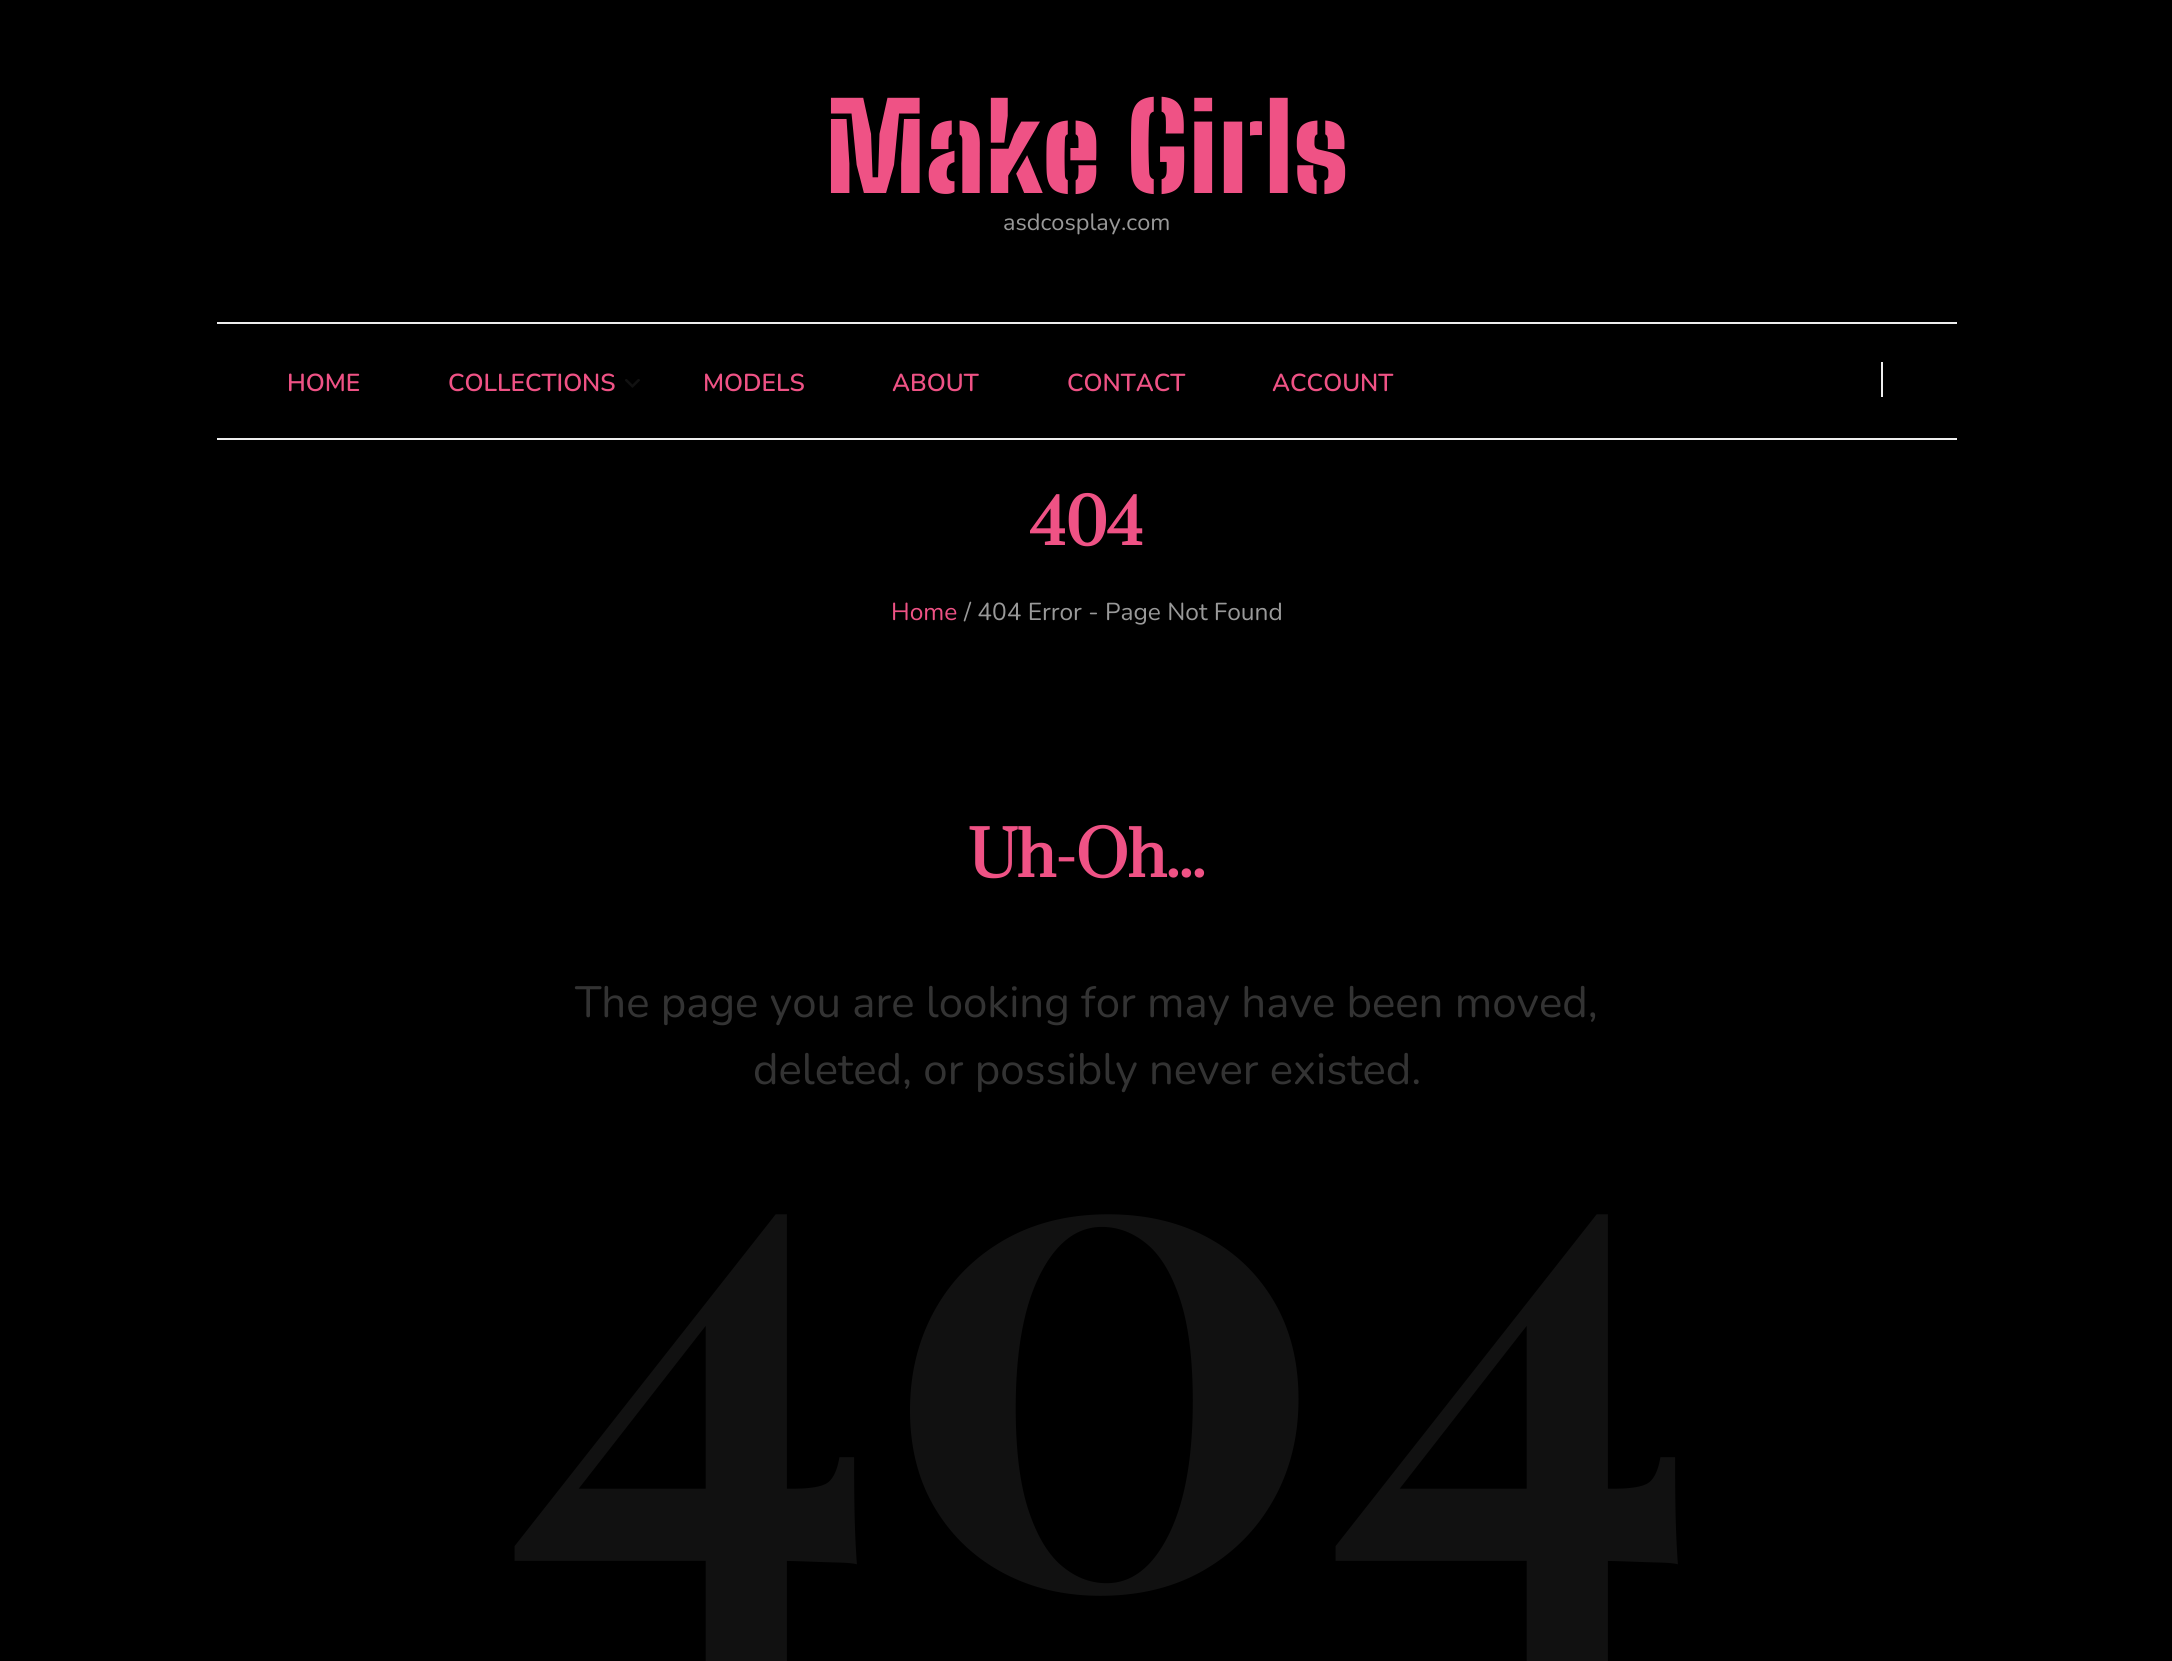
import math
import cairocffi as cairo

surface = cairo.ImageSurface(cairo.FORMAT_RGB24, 2172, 1661)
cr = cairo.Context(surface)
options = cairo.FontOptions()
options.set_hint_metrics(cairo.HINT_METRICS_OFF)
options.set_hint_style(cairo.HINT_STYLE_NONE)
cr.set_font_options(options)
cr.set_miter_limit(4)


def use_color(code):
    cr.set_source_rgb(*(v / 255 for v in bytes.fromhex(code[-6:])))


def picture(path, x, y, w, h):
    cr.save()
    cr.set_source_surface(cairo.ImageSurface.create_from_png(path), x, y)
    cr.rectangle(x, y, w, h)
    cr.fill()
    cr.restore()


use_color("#000000")
cr.paint()
cr.select_font_face("Big Shoulders Stencil Text Black")
cr.set_font_size(119)
use_color("#ef5285")
cr.move_to(825, 193)
cr.show_text("Make Girls")
cr.select_font_face("Nunito")
cr.set_font_size(23.5)
use_color("#999999")
cr.move_to(1003, 230)
cr.show_text("asdcosplay.com")
use_color("#eeeeee")
cr.rectangle(217, 322, 1740, 2)
cr.fill()
cr.rectangle(217, 438, 1740, 2)
cr.fill()
cr.select_font_face("Nunito SemiBold")
cr.set_font_size(24.5)
use_color("#ef5285")
cr.move_to(287, 391)
cr.show_text("HOME")
cr.move_to(448, 391)
cr.show_text("COLLECTIONS")
picture("img1.png", 625, 379, 15, 9)
cr.move_to(703, 391)
cr.show_text("MODELS")
cr.move_to(892, 391)
cr.show_text("ABOUT")
cr.move_to(1067, 391)
cr.show_text("CONTACT")
cr.move_to(1272, 391)
cr.show_text("ACCOUNT")
use_color("#eeeeee")
cr.rectangle(1881, 362, 2, 35)
cr.fill()
cr.select_font_face("Suranna", cairo.FONT_SLANT_NORMAL, cairo.FONT_WEIGHT_BOLD)
cr.set_font_size(77)
use_color("#ef5285")
cr.move_to(1030, 545)
cr.show_text("404")
cr.select_font_face("Nunito")
cr.set_font_size(24.5)
cr.move_to(891, 620)
cr.show_text("Home")
use_color("#999999")
cr.move_to(964, 620)
cr.show_text("/ 404 Error - Page Not Found")
cr.select_font_face("Suranna", cairo.FONT_SLANT_NORMAL, cairo.FONT_WEIGHT_BOLD)
cr.set_font_size(77)
use_color("#ef5285")
cr.move_to(968, 877)
cr.show_text("Uh-Oh...")
cr.select_font_face("Nunito")
cr.set_font_size(43.75)
use_color("#333333")
cr.move_to(575, 1017)
cr.show_text("The page you are looking for may have been moved,")
cr.move_to(753, 1084)
cr.show_text("deleted, or possibly never existed.")
cr.select_font_face("Playfair Display", cairo.FONT_SLANT_NORMAL, cairo.FONT_WEIGHT_BOLD)
cr.set_font_size(700)
use_color("#111111")
cr.move_to(509, 1586)
cr.show_text("404")
surface.write_to_png("result.png")
